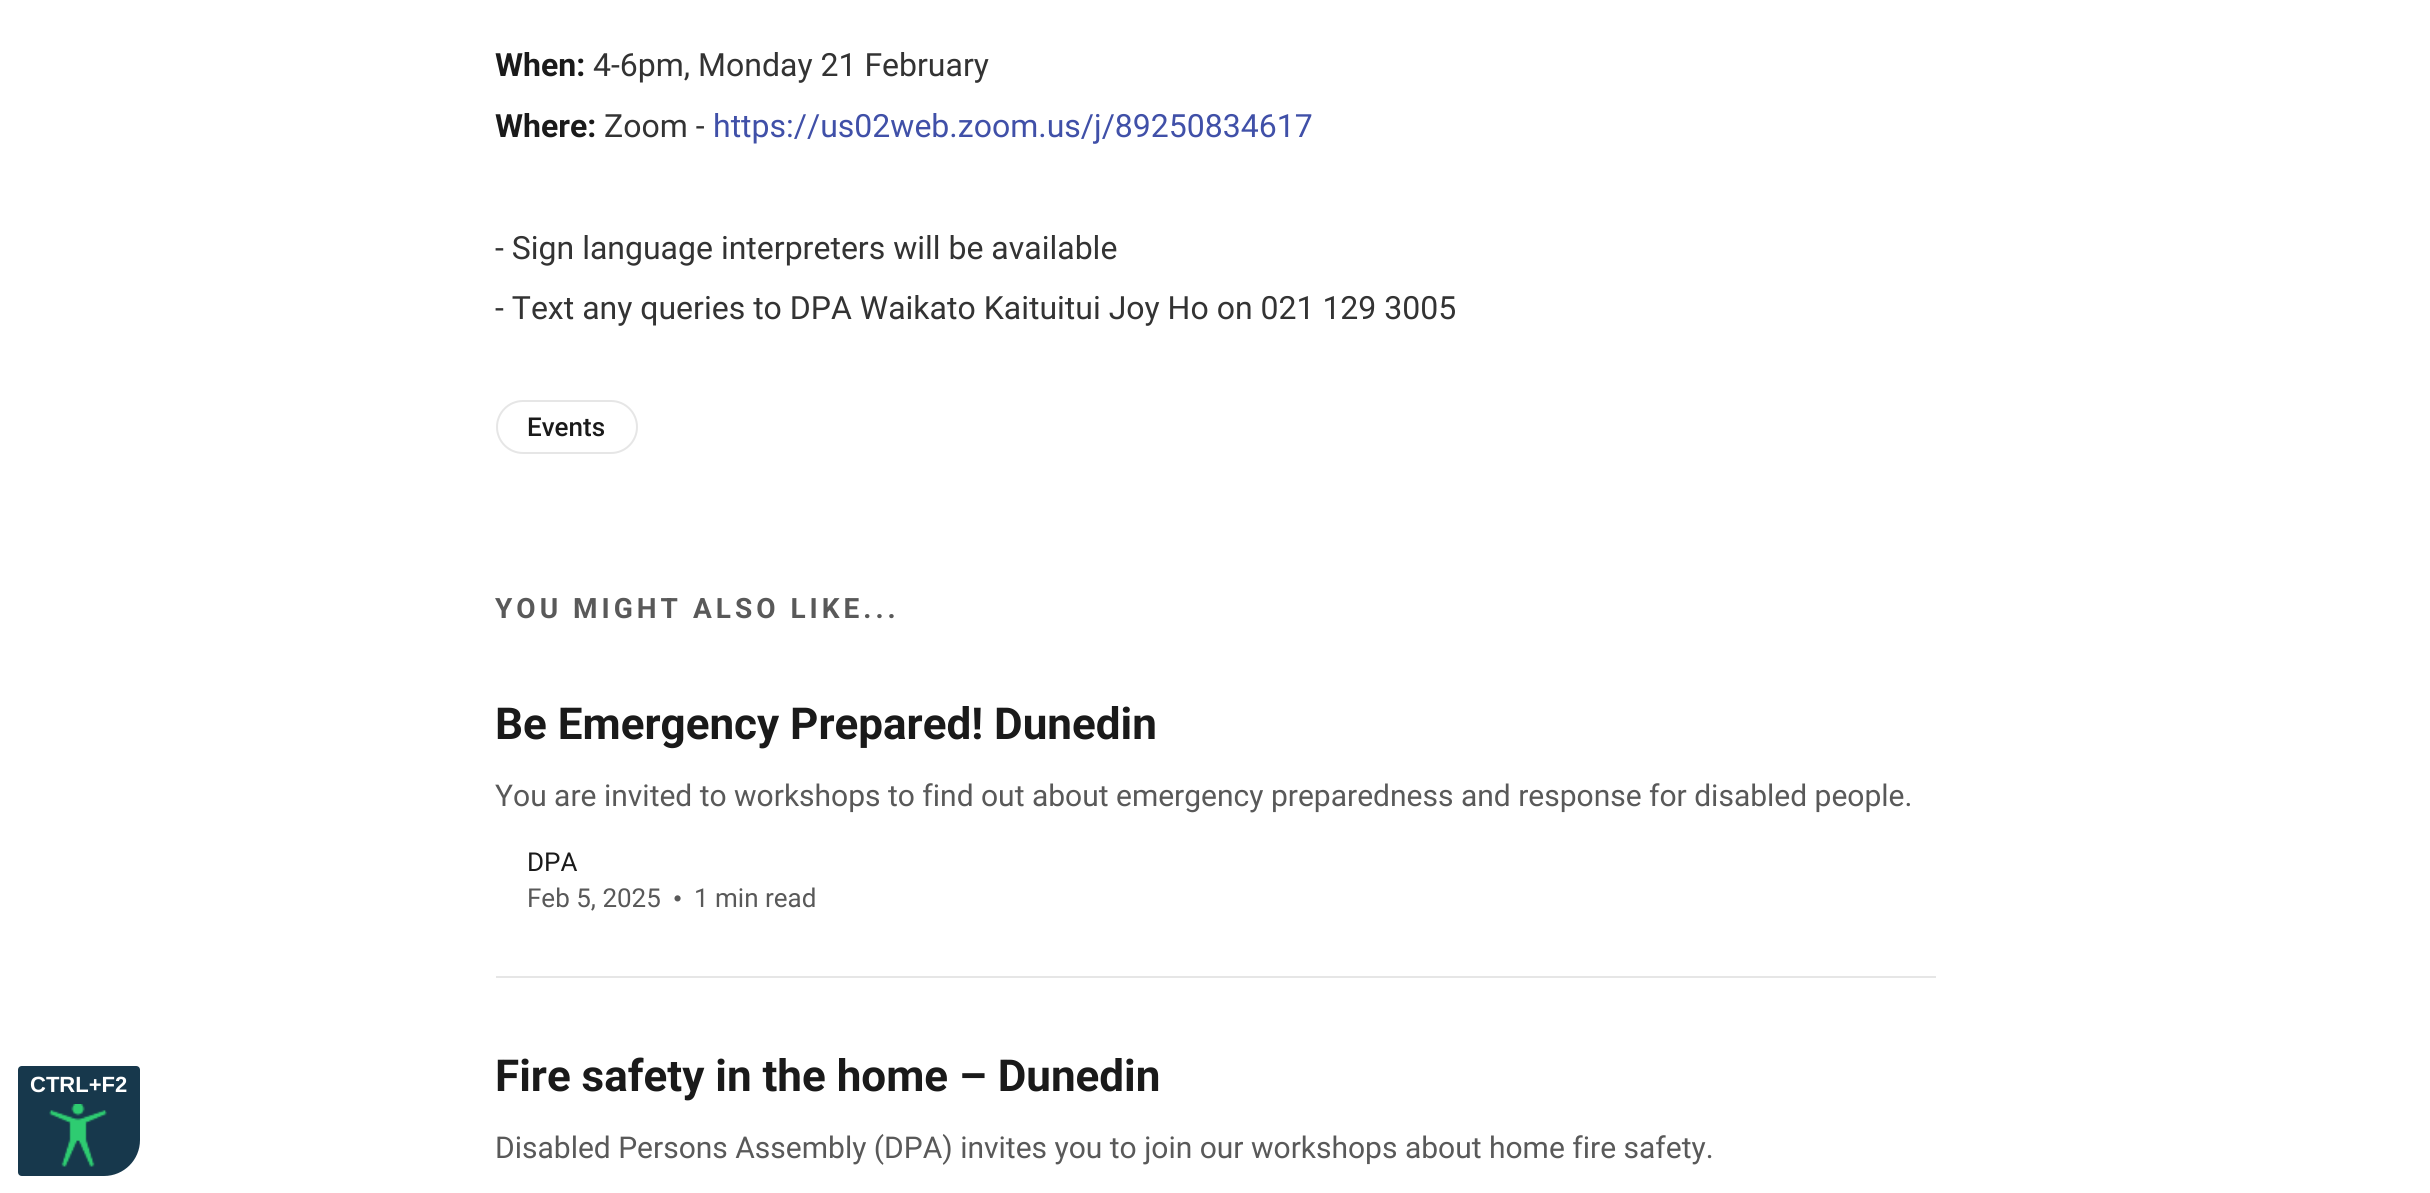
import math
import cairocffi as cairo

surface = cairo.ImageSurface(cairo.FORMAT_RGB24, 2430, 1193)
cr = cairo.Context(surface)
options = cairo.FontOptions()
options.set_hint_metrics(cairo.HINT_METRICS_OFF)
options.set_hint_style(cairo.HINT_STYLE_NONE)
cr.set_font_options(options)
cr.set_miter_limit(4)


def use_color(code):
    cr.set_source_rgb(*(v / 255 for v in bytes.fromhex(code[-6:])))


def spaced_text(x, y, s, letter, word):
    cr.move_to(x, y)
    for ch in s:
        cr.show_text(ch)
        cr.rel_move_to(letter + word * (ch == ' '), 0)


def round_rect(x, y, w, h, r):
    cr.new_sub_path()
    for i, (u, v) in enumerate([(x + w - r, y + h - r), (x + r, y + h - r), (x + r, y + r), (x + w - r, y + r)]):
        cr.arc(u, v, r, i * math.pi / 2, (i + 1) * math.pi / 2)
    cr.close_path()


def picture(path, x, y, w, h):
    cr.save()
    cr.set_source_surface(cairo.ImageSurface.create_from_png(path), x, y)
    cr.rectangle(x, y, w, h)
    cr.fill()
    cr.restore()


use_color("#ffffff")
cr.paint()
use_color("#17384c")
cr.new_path()
cr.move_to(22, 1064)
cr.line_to(136, 1064)
cr.curve_to(139.5, 1064, 142, 1066.5, 142, 1070)
cr.line_to(142, 1140)
cr.curve_to(142, 1161, 125, 1178, 104, 1178)
cr.line_to(22, 1178)
cr.curve_to(18.5, 1178, 16, 1175.5, 16, 1172)
cr.line_to(16, 1070)
cr.curve_to(16, 1066.5, 18.5, 1064, 22, 1064)
cr.close_path()
cr.fill_preserve()
use_color("#ffffff")
cr.set_line_width(4)
cr.stroke()
cr.select_font_face("Liberation Sans", cairo.FONT_SLANT_NORMAL, cairo.FONT_WEIGHT_BOLD)
cr.set_font_size(22)
cr.move_to(30, 1092)
cr.show_text("CTRL+F2")
picture("img1.png", 49, 1104, 58, 63)
cr.select_font_face("Roboto", cairo.FONT_SLANT_NORMAL, cairo.FONT_WEIGHT_BOLD)
cr.set_font_size(32)
use_color("#1a1a1a")
cr.move_to(495, 76)
cr.show_text("When:")
cr.select_font_face("Roboto")
use_color("#333333")
cr.move_to(593, 76)
cr.show_text("4-6pm, Monday 21 February")
cr.select_font_face("Roboto", cairo.FONT_SLANT_NORMAL, cairo.FONT_WEIGHT_BOLD)
use_color("#1a1a1a")
cr.move_to(495, 137)
cr.show_text("Where:")
cr.select_font_face("Roboto")
use_color("#333333")
cr.move_to(604, 137)
cr.show_text("Zoom -")
use_color("#4050a8")
cr.move_to(713, 137)
cr.show_text("https://us02web.zoom.us/j/89250834617")
use_color("#333333")
cr.move_to(495, 259)
cr.show_text("- Sign language interpreters will be available")
cr.move_to(495, 319)
cr.show_text("- Text any queries to DPA Waikato Kaituitui Joy Ho on 021 129 3005")
round_rect(497, 401, 140, 52, 26)
use_color("#e6e6e6")
cr.set_line_width(2)
cr.stroke()
cr.select_font_face("Roboto Medium")
cr.set_font_size(26)
use_color("#1a1a1a")
cr.move_to(527, 436)
cr.show_text("Events")
cr.select_font_face("Roboto", cairo.FONT_SLANT_NORMAL, cairo.FONT_WEIGHT_BOLD)
cr.set_font_size(28)
use_color("#595959")
spaced_text(495, 618, "YOU MIGHT ALSO LIKE...", 4, 0)
cr.set_font_size(44)
use_color("#1a1a1a")
cr.move_to(495, 739)
cr.show_text("Be Emergency Prepared! Dunedin")
cr.select_font_face("Roboto")
cr.set_font_size(30)
use_color("#595959")
cr.move_to(495, 806)
cr.show_text("You are invited to workshops to find out about emergency preparedness and response for disabled people.")
cr.set_font_size(26)
use_color("#1a1a1a")
cr.move_to(527, 871)
cr.show_text("DPA")
use_color("#595959")
cr.move_to(527, 907)
cr.show_text("Feb 5, 2025")
cr.select_font_face("Liberation Serif")
cr.move_to(673, 907)
cr.show_text("•")
cr.select_font_face("Roboto")
cr.move_to(694, 907)
cr.show_text("1 min read")
use_color("#e6e6e6")
cr.rectangle(496, 976, 1440, 2)
cr.fill()
cr.select_font_face("Roboto", cairo.FONT_SLANT_NORMAL, cairo.FONT_WEIGHT_BOLD)
cr.set_font_size(44)
use_color("#1a1a1a")
cr.move_to(495, 1091)
cr.show_text("Fire safety in the home – Dunedin")
cr.select_font_face("Roboto")
cr.set_font_size(30)
use_color("#595959")
cr.move_to(495, 1158)
cr.show_text("Disabled Persons Assembly (DPA) invites you to join our workshops about home fire safety.")
surface.write_to_png("result.png")
